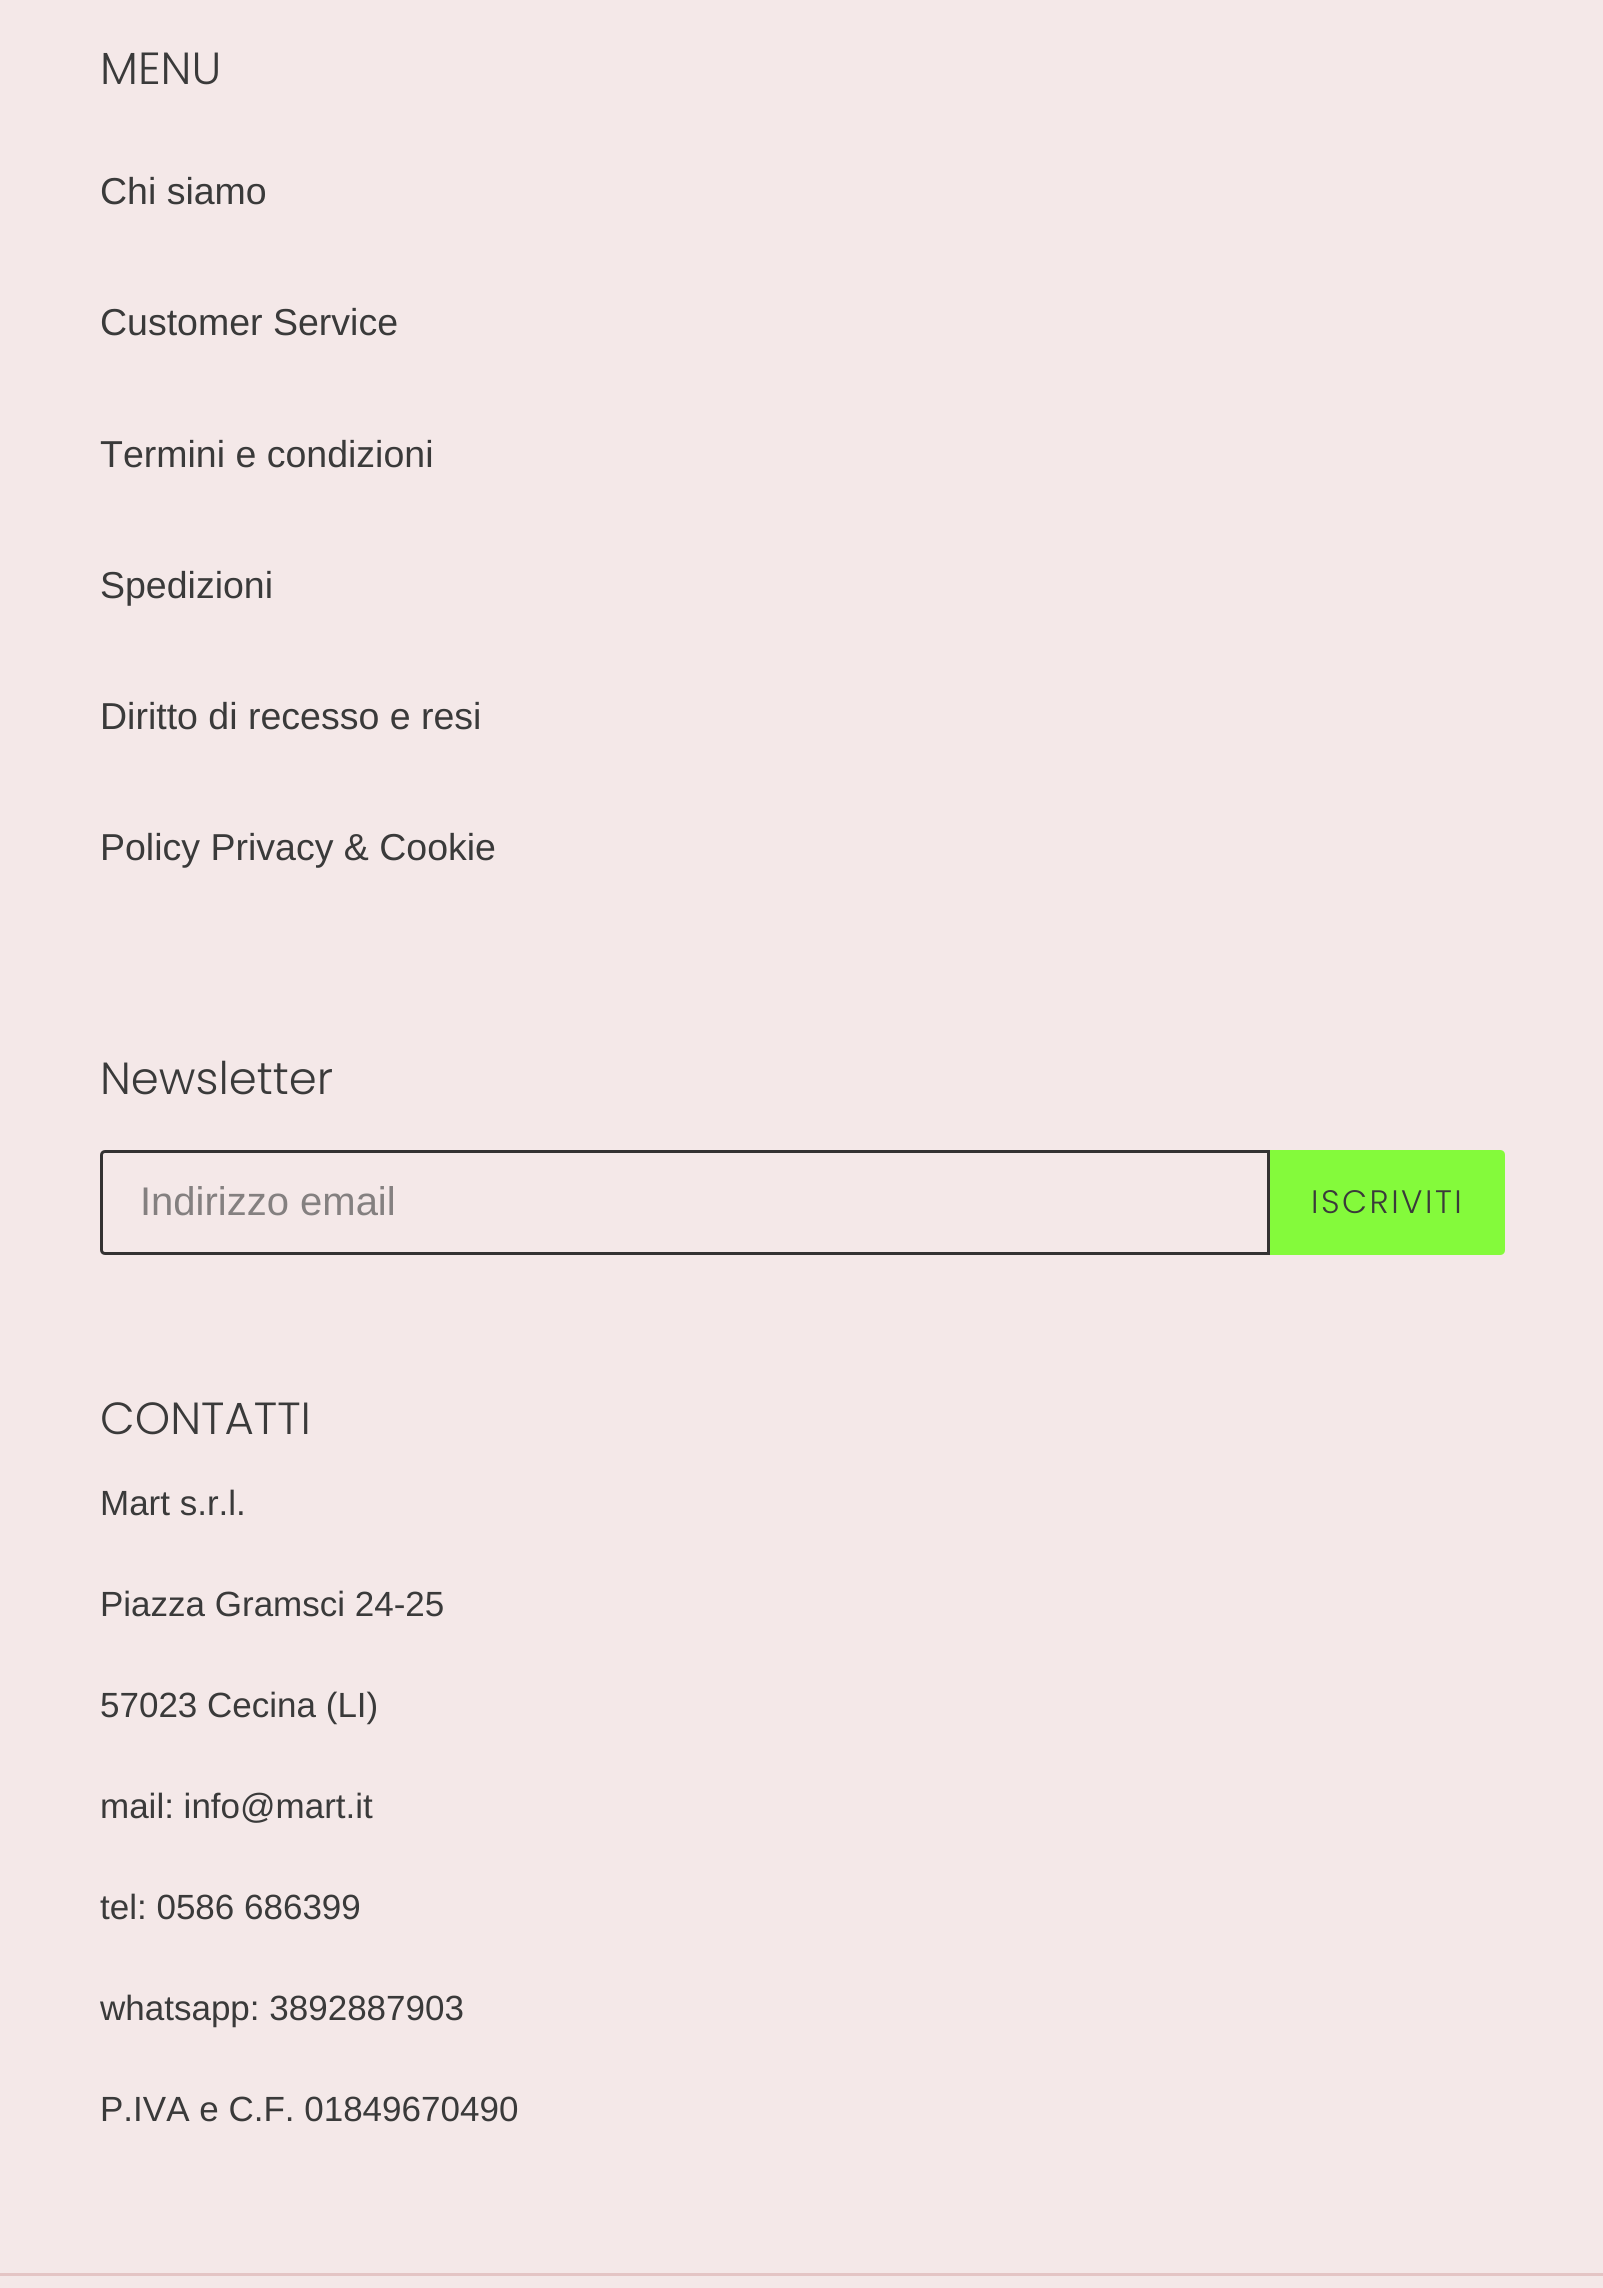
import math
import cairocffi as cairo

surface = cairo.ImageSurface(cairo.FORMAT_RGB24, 1603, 2288)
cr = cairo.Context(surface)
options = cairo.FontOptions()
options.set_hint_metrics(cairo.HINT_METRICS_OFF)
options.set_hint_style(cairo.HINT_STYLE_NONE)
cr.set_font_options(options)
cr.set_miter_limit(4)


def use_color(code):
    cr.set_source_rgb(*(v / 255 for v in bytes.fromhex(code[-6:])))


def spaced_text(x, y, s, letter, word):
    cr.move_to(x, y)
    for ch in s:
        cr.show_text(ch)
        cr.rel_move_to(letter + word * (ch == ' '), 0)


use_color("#f4e8e8")
cr.paint()
cr.select_font_face("Poppins Light")
cr.set_font_size(45)
use_color("#3a3a3a")
cr.move_to(100, 84)
cr.show_text("MENU")
cr.select_font_face("Liberation Sans")
cr.set_font_size(37.5)
cr.move_to(100, 204)
cr.show_text("Chi siamo")
cr.move_to(100, 335)
cr.show_text("Customer Service")
cr.move_to(100, 467)
cr.show_text("Termini e condizioni")
cr.move_to(100, 598)
cr.show_text("Spedizioni")
cr.move_to(100, 729)
cr.show_text("Diritto di recesso e resi")
cr.move_to(100, 860)
cr.show_text("Policy Privacy & Cookie")
cr.select_font_face("Poppins Light")
cr.set_font_size(45)
cr.move_to(100, 1094)
cr.show_text("Newsletter")
cr.new_path()
cr.move_to(105, 1151.5)
cr.line_to(1268.5, 1151.5)
cr.line_to(1268.5, 1253.5)
cr.line_to(105, 1253.5)
cr.curve_to(103, 1253.5, 101.5, 1252, 101.5, 1250)
cr.line_to(101.5, 1155)
cr.curve_to(101.5, 1153, 103, 1151.5, 105, 1151.5)
cr.close_path()
use_color("#333232")
cr.set_line_width(3)
cr.stroke()
cr.select_font_face("Liberation Sans")
cr.set_font_size(40)
use_color("#848080")
cr.move_to(140, 1215)
cr.show_text("Indirizzo email")
use_color("#84fa3b")
cr.new_path()
cr.move_to(1270, 1150)
cr.line_to(1500, 1150)
cr.curve_to(1503, 1150, 1505, 1152, 1505, 1155)
cr.line_to(1505, 1250)
cr.curve_to(1505, 1253, 1503, 1255, 1500, 1255)
cr.line_to(1270, 1255)
cr.close_path()
cr.fill()
cr.select_font_face("Poppins Light")
cr.set_font_size(32.5)
use_color("#3a3a3a")
spaced_text(1311, 1213, "ISCRIVITI", 2.5, 0)
cr.set_font_size(45)
cr.move_to(100, 1434)
cr.show_text("CONTATTI")
cr.select_font_face("Liberation Sans")
cr.set_font_size(35)
cr.move_to(100, 1515)
cr.show_text("Mart s.r.l.")
cr.move_to(100, 1616)
cr.show_text("Piazza Gramsci 24-25")
cr.move_to(100, 1717)
cr.show_text("57023 Cecina (LI)")
cr.move_to(100, 1818)
cr.show_text("mail: info@mart.it")
cr.move_to(100, 1919)
cr.show_text("tel: 0586 686399")
cr.move_to(100, 2020)
cr.show_text("whatsapp: 3892887903")
cr.move_to(100, 2121)
cr.show_text("P.IVA e C.F. 01849670490")
use_color("#e4c5c5")
cr.rectangle(0, 2273, 1603, 3)
cr.fill()
surface.write_to_png("result.png")
